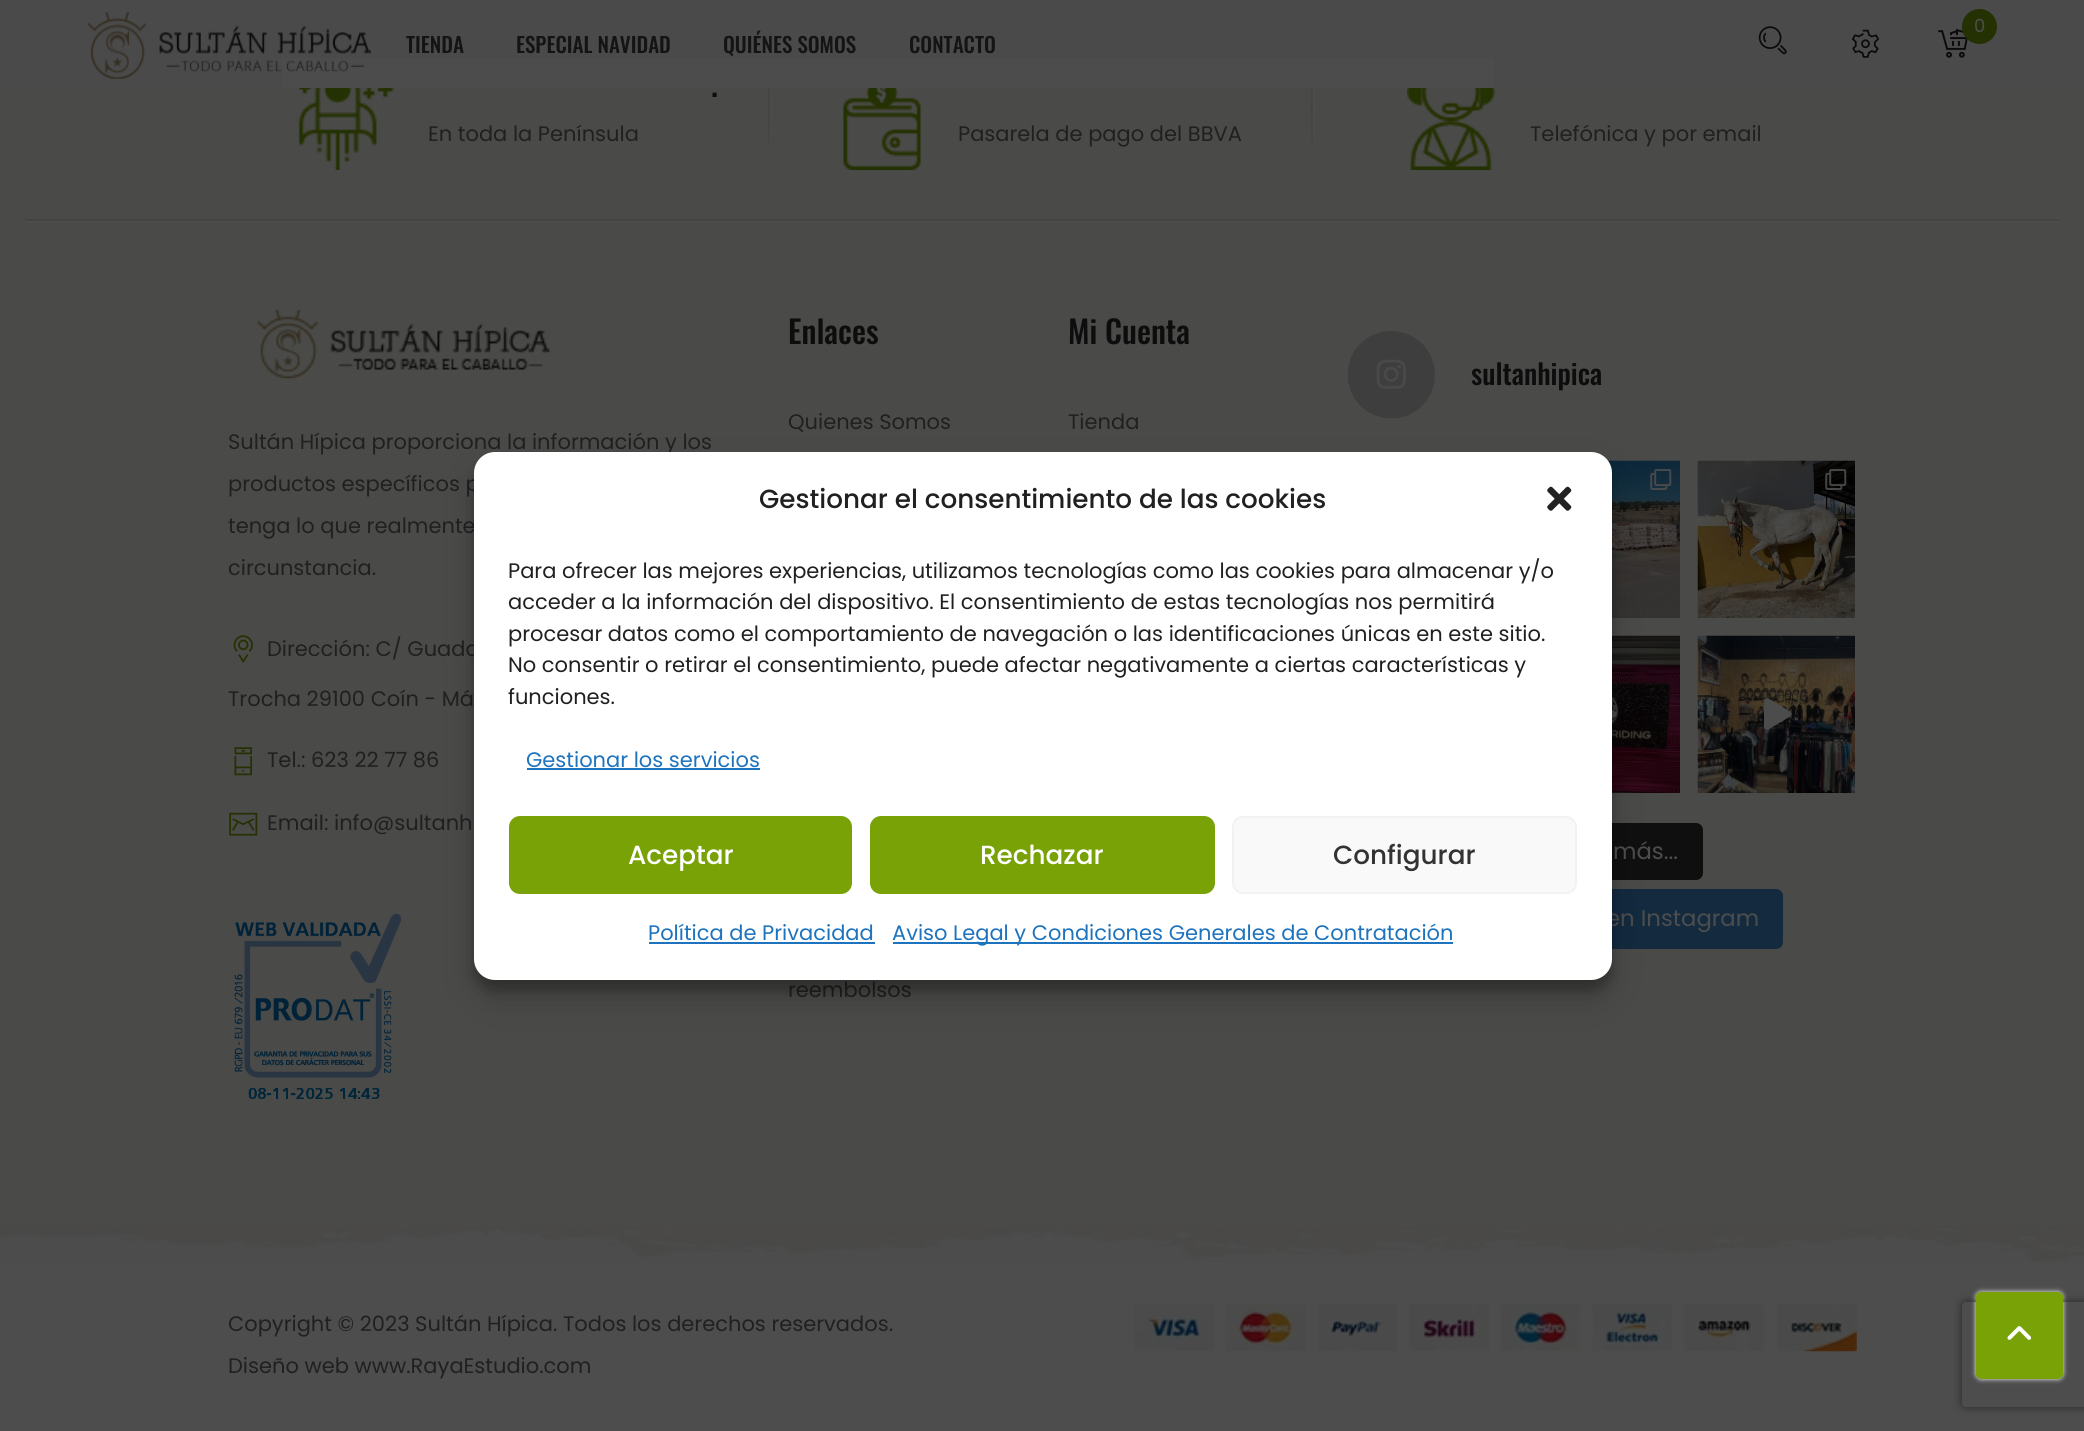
import math
import cairocffi as cairo

surface = cairo.ImageSurface(cairo.FORMAT_RGB24, 2084, 1431)
cr = cairo.Context(surface)
options = cairo.FontOptions()
options.set_hint_metrics(cairo.HINT_METRICS_OFF)
options.set_hint_style(cairo.HINT_STYLE_NONE)
cr.set_font_options(options)
cr.set_miter_limit(4)


def use_color(code):
    cr.set_source_rgb(*(v / 255 for v in bytes.fromhex(code[-6:])))


def round_rect(x, y, w, h, r):
    cr.new_sub_path()
    for i, (u, v) in enumerate([(x + w - r, y + h - r), (x + r, y + h - r), (x + r, y + r), (x + w - r, y + r)]):
        cr.arc(u, v, r, i * math.pi / 2, (i + 1) * math.pi / 2)
    cr.close_path()


def shadow(x, y, w, h, r, blur, alpha):
    cr.push_group_with_content(cairo.CONTENT_ALPHA)
    cr.set_operator(cairo.OPERATOR_SOURCE)
    for i in range(15, -16, -2):
        e = blur * i / 6
        if min(w, h) + 2 * e > 0:
            cr.set_source_rgba(0, 0, 0, alpha * math.erfc((i - 1) / 8.5) / 2)
            round_rect(x - e, y - e, w + 2 * e, h + 2 * e, max(0, min(r + e + blur * .6, min(w, h) / 2 + e)))
            cr.fill()
    cr.mask(cr.pop_group())


def picture(path, x, y, w, h):
    cr.save()
    cr.set_source_surface(cairo.ImageSurface.create_from_png(path), x, y)
    cr.rectangle(x, y, w, h)
    cr.fill()
    cr.restore()


use_color("#4a4a48")
cr.paint()
picture("img5.png", 281, 58, 113, 112)
gradient = cairo.LinearGradient(769, 170, 769, 49)
gradient.add_color_stop_rgba(0, 0.29, 0.29, 0.282, 1)
gradient.add_color_stop_rgba(0.5, 0.267, 0.267, 0.267, 1)
gradient.add_color_stop_rgba(1, 0.29, 0.29, 0.282, 1)
cr.set_source(gradient)
cr.rectangle(768, 74, 2, 71)
cr.fill()
gradient = cairo.LinearGradient(771, 170, 771, 49)
gradient.add_color_stop_rgba(0, 0.29, 0.29, 0.282, 1)
gradient.add_color_stop_rgba(0.5, 0.302, 0.302, 0.302, 1)
gradient.add_color_stop_rgba(1, 0.29, 0.29, 0.282, 1)
cr.set_source(gradient)
cr.rectangle(770, 79, 2, 61)
cr.fill()
picture("img6.png", 842, 58, 80, 112)
gradient = cairo.LinearGradient(1312, 170, 1312, 49)
gradient.add_color_stop_rgba(0, 0.29, 0.29, 0.282, 1)
gradient.add_color_stop_rgba(0.5, 0.267, 0.267, 0.267, 1)
gradient.add_color_stop_rgba(1, 0.29, 0.29, 0.282, 1)
cr.set_source(gradient)
cr.rectangle(1311, 74, 2, 71)
cr.fill()
gradient = cairo.LinearGradient(1313, 170, 1313, 49)
gradient.add_color_stop_rgba(0, 0.29, 0.29, 0.282, 1)
gradient.add_color_stop_rgba(0.5, 0.302, 0.302, 0.302, 1)
gradient.add_color_stop_rgba(1, 0.29, 0.29, 0.282, 1)
cr.set_source(gradient)
cr.rectangle(1313, 79, 2, 61)
cr.fill()
picture("img7.png", 1407, 58, 88, 112)
cr.set_source_rgba(0.294, 0.294, 0.294, 0.95)
cr.rectangle(0, 0, 2084, 88)
cr.fill()
cr.set_source_rgba(0.302, 0.302, 0.302, 0.89)
cr.rectangle(282, 58, 1212, 30)
cr.fill()
picture("img1.png", 87, 12, 284, 67)
picture("img2.png", 1758, 26, 29, 29)
picture("img3.png", 1851, 29, 29, 29)
picture("img4.png", 1938, 29, 30, 29)
use_color("#243102")
cr.arc(1979.5, 26.5, 17.5, 0, 2 * math.pi)
cr.fill()
cr.select_font_face("Poppins")
cr.set_font_size(18)
use_color("#4d4d4d")
cr.move_to(1974, 32)
cr.show_text("0")
cr.select_font_face("Oswald Medium")
cr.set_font_size(21)
use_color("#141414")
cr.move_to(406, 53)
cr.show_text("TIENDA")
cr.move_to(516, 53)
cr.show_text("ESPECIAL NAVIDAD")
cr.move_to(723, 53)
cr.show_text("QUIÉNES SOMOS")
cr.move_to(909, 53)
cr.show_text("CONTACTO")
cr.set_font_size(31.5)
use_color("#0d0d0d")
cr.move_to(711, 97)
cr.show_text(".")
cr.select_font_face("Poppins")
cr.set_font_size(21)
use_color("#202020")
cr.move_to(428, 141)
cr.show_text("En toda la Península")
cr.move_to(958, 141)
cr.show_text("Pasarela de pago del BBVA")
cr.move_to(1530, 141)
cr.show_text("Telefónica y por email")
use_color("#444444")
cr.rectangle(26, 219, 2032, 2)
cr.fill()
use_color("#4d4d4d")
cr.rectangle(26, 221, 2032, 2)
cr.fill()
picture("img8.png", 257, 310, 293, 69)
use_color("#202020")
cr.move_to(228, 449)
cr.show_text("Sultán Hípica proporciona la información y los")
cr.move_to(228, 491)
cr.show_text("productos específicos p")
cr.move_to(228, 533)
cr.show_text("tenga lo que realmente")
cr.move_to(228, 575)
cr.show_text("circunstancia.")
picture("img9.png", 233, 635, 20, 28)
cr.move_to(267, 656)
cr.show_text("Dirección: C/ Guada")
cr.move_to(228, 706)
cr.show_text("Trocha 29100 Coín - Má")
picture("img10.png", 234, 747, 18, 29)
cr.move_to(267, 767)
cr.show_text("Tel.: 623 22 77 86")
picture("img11.png", 229, 812, 29, 24)
cr.move_to(267, 830)
cr.show_text("Email: info@sultanh")
picture("img12.png", 234, 913, 168, 186)
cr.select_font_face("Oswald Medium")
cr.set_font_size(31.5)
use_color("#0d0d0d")
cr.move_to(788, 344)
cr.show_text("Enlaces")
cr.select_font_face("Poppins")
cr.set_font_size(21)
use_color("#202020")
cr.move_to(788, 429)
cr.show_text("Quienes Somos")
cr.move_to(788, 997)
cr.show_text("reembolsos")
cr.select_font_face("Oswald Medium")
cr.set_font_size(31.5)
use_color("#0d0d0d")
cr.move_to(1068, 344)
cr.show_text("Mi Cuenta")
cr.select_font_face("Poppins")
cr.set_font_size(21)
use_color("#202020")
cr.move_to(1068, 429)
cr.show_text("Tienda")
picture("img13.png", 1347, 331, 88, 88)
cr.select_font_face("Oswald Medium")
cr.set_font_size(28)
use_color("#0d0d0d")
cr.move_to(1471, 385)
cr.show_text("sultanhipica")
picture("img14.png", 1607, 460, 73, 158)
picture("img15.png", 1650, 469, 22, 21)
picture("img16.png", 1697, 460, 158, 158)
picture("img17.png", 1825, 469, 22, 21)
picture("img18.png", 1612, 635, 68, 158)
picture("img19.png", 1612, 709, 5, 10)
picture("img20.png", 1697, 635, 158, 158)
picture("img21.png", 1764, 698, 28, 32)
use_color("#0f0f0f")
round_rect(1502, 823, 201, 57, 7)
cr.fill()
cr.select_font_face("Poppins")
cr.set_font_size(22.75)
use_color("#4d4d4d")
cr.move_to(1613, 859)
cr.show_text("más...")
use_color("#132a3f")
round_rect(1430, 889, 353, 60, 7)
cr.fill()
use_color("#4d4d4d")
cr.move_to(1606, 926)
cr.show_text("en Instagram")
cr.rectangle(0, 1225, 2084, 206)
cr.fill()
picture("img22.png", 0, 1225, 2084, 38)
cr.set_font_size(21)
use_color("#202020")
cr.move_to(228, 1331)
cr.show_text("Copyright © 2023 Sultán Hípica. Todos los derechos reservados.")
cr.move_to(228, 1373)
cr.show_text("Diseño web www.RayaEstudio.com")
picture("img23.png", 1134, 1304, 723, 48)
use_color("#000000")
shadow(474, 462, 1138, 529, 21, 5, 0.23)
shadow(474, 469, 1138, 529, 21, 17.5, 0.19)
use_color("#ffffff")
round_rect(474, 452, 1138, 528, 21)
cr.fill()
cr.select_font_face("Poppins Medium")
cr.set_font_size(26.25)
use_color("#202020")
cr.move_to(759, 508)
cr.show_text("Gestionar el consentimiento de las cookies")
picture("img24.png", 1547, 486, 25, 25)
cr.select_font_face("Poppins")
cr.set_font_size(21)
cr.move_to(508, 578)
cr.show_text("Para ofrecer las mejores experiencias, utilizamos tecnologías como las cookies para almacenar y/o")
cr.move_to(508, 609)
cr.show_text("acceder a la información del dispositivo. El consentimiento de estas tecnologías nos permitirá")
cr.move_to(508, 641)
cr.show_text("procesar datos como el comportamiento de navegación o las identificaciones únicas en este sitio.")
cr.move_to(508, 672)
cr.show_text("No consentir o retirar el consentimiento, puede afectar negativamente a ciertas características y")
cr.move_to(508, 704)
cr.show_text("funciones.")
use_color("#1e73be")
cr.move_to(526, 767)
cr.show_text("Gestionar los servicios")
cr.rectangle(527, 768, 233, 2)
cr.fill()
use_color("#78a206")
round_rect(510, 817, 341, 76, 10)
cr.fill_preserve()
cr.stroke()
cr.select_font_face("Poppins Medium")
cr.set_font_size(26.25)
use_color("#ffffff")
cr.move_to(628, 864)
cr.show_text("Aceptar")
use_color("#78a206")
round_rect(871, 817, 343, 76, 10)
cr.fill_preserve()
cr.stroke()
use_color("#ffffff")
cr.move_to(980, 864)
cr.show_text("Rechazar")
use_color("#f9f9f9")
round_rect(1233, 817, 343, 76, 10)
cr.fill_preserve()
use_color("#f2f2f2")
cr.stroke()
use_color("#333333")
cr.move_to(1333, 864)
cr.show_text("Configurar")
cr.select_font_face("Poppins")
cr.set_font_size(21)
use_color("#1e73be")
cr.move_to(648, 940)
cr.show_text("Política de Privacidad")
cr.rectangle(649, 942, 226, 2)
cr.fill()
cr.rectangle(893, 942, 560, 2)
cr.fill()
cr.move_to(892, 940)
cr.show_text("Aviso Legal y Condiciones Generales de Contratación")
use_color("#ffffff")
shadow(1976, 1292, 87, 87, 5, 2.5, 1)
cr.save()
cr.set_fill_rule(cairo.FILL_RULE_EVEN_ODD)
cr.new_path()
cr.move_to(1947, 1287)
cr.line_to(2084, 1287)
cr.line_to(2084, 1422)
cr.line_to(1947, 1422)
cr.close_path()
cr.move_to(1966, 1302)
cr.line_to(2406, 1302)
cr.curve_to(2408, 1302, 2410, 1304, 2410, 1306)
cr.line_to(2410, 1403)
cr.curve_to(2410, 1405, 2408, 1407, 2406, 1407)
cr.line_to(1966, 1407)
cr.curve_to(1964, 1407, 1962, 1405, 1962, 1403)
cr.line_to(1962, 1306)
cr.curve_to(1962, 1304, 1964, 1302, 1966, 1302)
cr.close_path()
cr.clip()
use_color("#262626")
shadow(1962, 1302, 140, 105, 4, 4.5, 1)
cr.restore()
use_color("#78a206")
round_rect(1976, 1292, 87, 87, 5)
cr.fill()
picture("img25.png", 2007, 1326, 25, 14)
surface.write_to_png("result.png")
